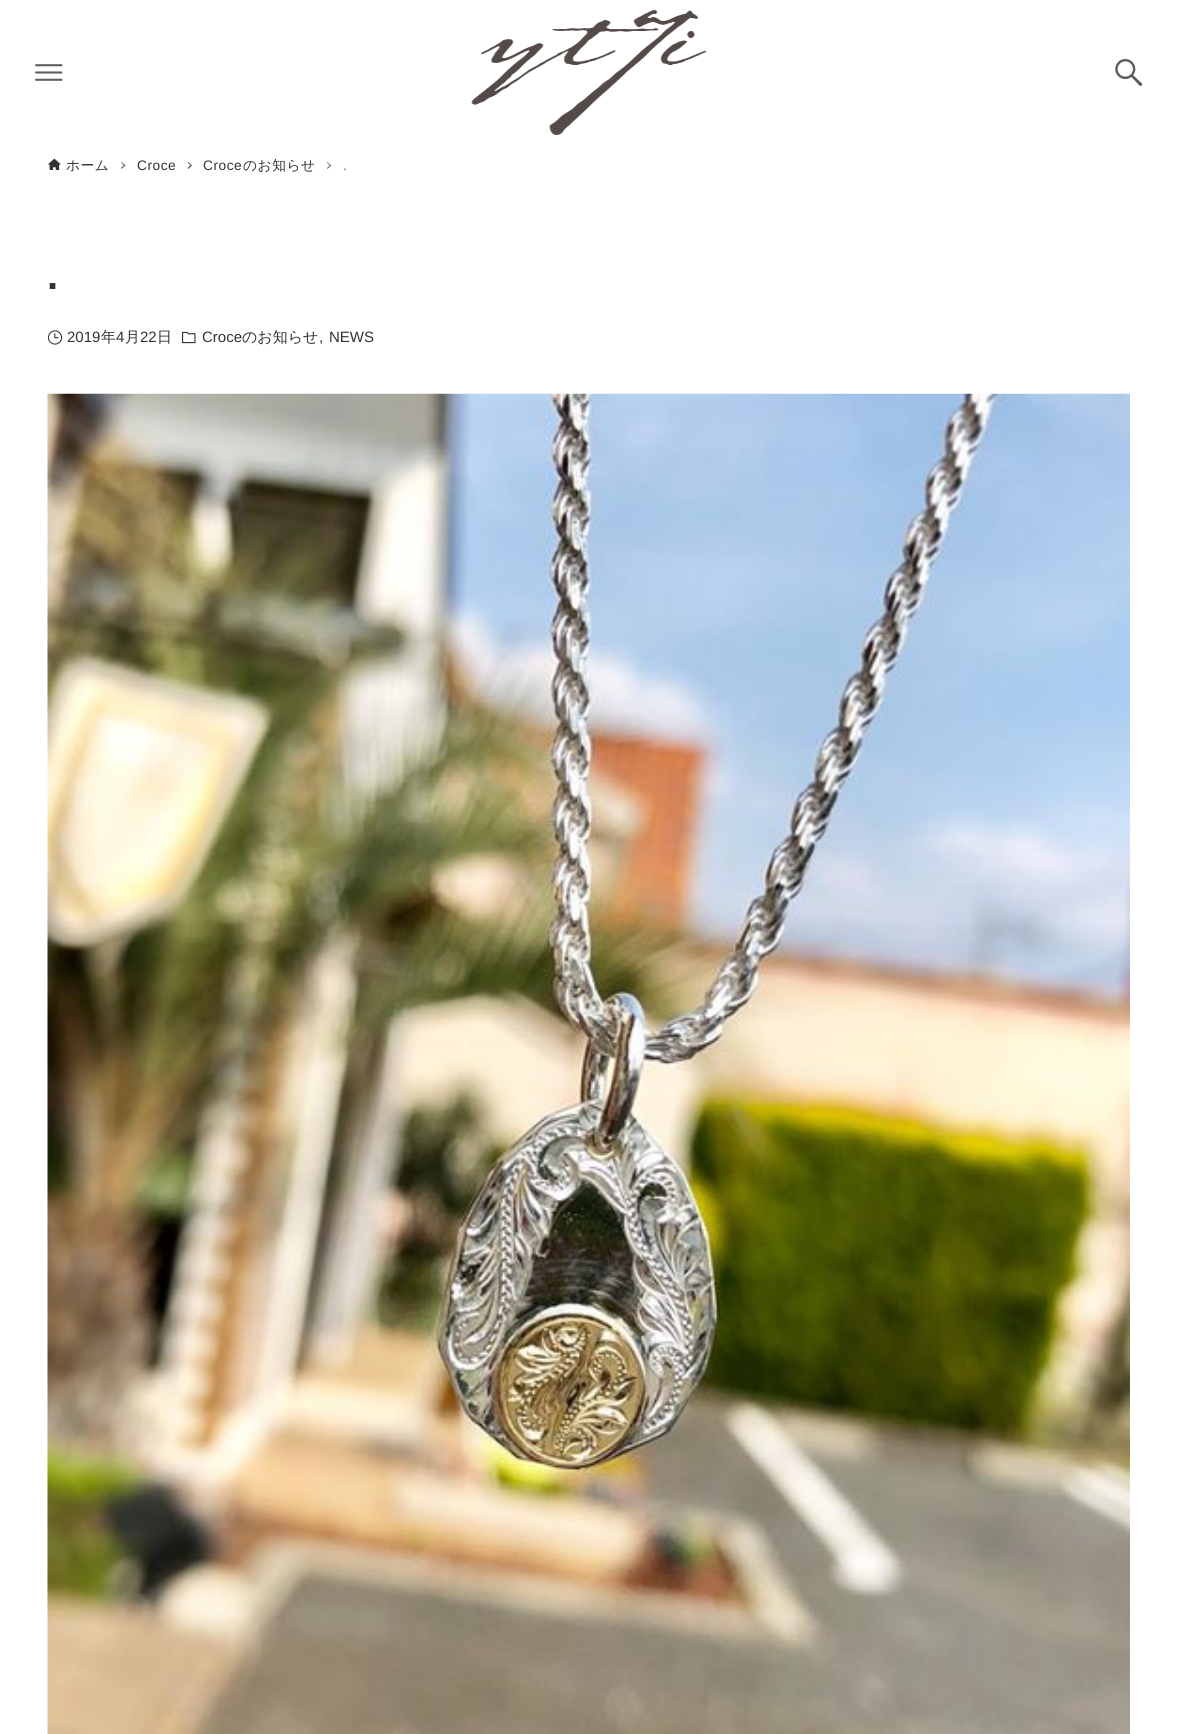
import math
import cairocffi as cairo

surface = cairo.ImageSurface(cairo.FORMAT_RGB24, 1177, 1734)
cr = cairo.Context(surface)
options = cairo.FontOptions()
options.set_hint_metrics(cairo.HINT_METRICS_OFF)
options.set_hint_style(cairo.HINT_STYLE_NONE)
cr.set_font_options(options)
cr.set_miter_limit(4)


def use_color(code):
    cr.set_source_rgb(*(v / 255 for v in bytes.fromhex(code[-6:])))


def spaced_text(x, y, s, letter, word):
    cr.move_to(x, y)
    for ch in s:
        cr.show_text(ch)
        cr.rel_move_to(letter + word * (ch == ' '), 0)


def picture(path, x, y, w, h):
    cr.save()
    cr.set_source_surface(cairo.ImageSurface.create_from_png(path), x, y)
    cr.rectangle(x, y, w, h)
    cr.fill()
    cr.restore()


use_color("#ffffff")
cr.paint()
picture("img1.png", 35, 64, 28, 17)
picture("img2.png", 471, 10, 236, 125)
picture("img3.png", 1115, 59, 28, 27)
picture("img4.png", 48, 158, 13, 12)
cr.select_font_face("WenQuanYi Zen Hei Medium")
cr.set_font_size(13.75)
use_color("#333333")
spaced_text(66, 170, "ホーム", 0.5, 0)
use_color("#666666")
cr.new_path()
cr.move_to(121.5, 162)
cr.line_to(125.5, 165.5)
cr.line_to(124.5, 166)
cr.line_to(121, 162.5)
cr.close_path()
cr.fill()
cr.new_path()
cr.move_to(124.5, 164.5)
cr.line_to(125.5, 165.5)
cr.line_to(121.5, 169)
cr.line_to(121, 168)
cr.close_path()
cr.fill()
cr.select_font_face("Liberation Sans")
use_color("#333333")
spaced_text(137, 170, "Croce", 0.5, 0)
use_color("#666666")
cr.new_path()
cr.move_to(188.5, 162)
cr.line_to(192, 165.5)
cr.line_to(191, 166)
cr.line_to(187.5, 162.5)
cr.close_path()
cr.fill()
cr.new_path()
cr.move_to(191, 164.5)
cr.line_to(192, 165.5)
cr.line_to(188.5, 169)
cr.line_to(187.5, 168)
cr.close_path()
cr.fill()
use_color("#333333")
spaced_text(203, 170, "Croce", 0.5, 0)
cr.select_font_face("WenQuanYi Zen Hei Medium")
spaced_text(243, 170, "のお知らせ", 0.5, 0)
use_color("#666666")
cr.new_path()
cr.move_to(327.5, 162)
cr.line_to(331, 165.5)
cr.line_to(330.5, 166)
cr.line_to(327, 162.5)
cr.close_path()
cr.fill()
cr.new_path()
cr.move_to(330.5, 164.5)
cr.line_to(331, 165.5)
cr.line_to(327.5, 169)
cr.line_to(327, 168)
cr.close_path()
cr.fill()
cr.select_font_face("Liberation Sans")
spaced_text(343, 170, ".", 0.5, 0)
cr.select_font_face("Liberation Sans", cairo.FONT_SLANT_NORMAL, cairo.FONT_WEIGHT_BOLD)
cr.set_font_size(40)
use_color("#333333")
spaced_text(47, 289, ".", 0.5, 0)
picture("img5.png", 48, 330, 15, 15)
cr.select_font_face("Liberation Sans")
cr.set_font_size(15)
cr.move_to(67, 342)
cr.show_text("2019")
cr.select_font_face("WenQuanYi Zen Hei Medium")
cr.move_to(101, 342)
cr.show_text("年")
cr.select_font_face("Liberation Sans")
cr.move_to(116, 342)
cr.show_text("4")
cr.select_font_face("WenQuanYi Zen Hei Medium")
cr.move_to(125, 342)
cr.show_text("月")
cr.select_font_face("Liberation Sans")
cr.move_to(140, 342)
cr.show_text("22")
cr.select_font_face("WenQuanYi Zen Hei Medium")
cr.move_to(157, 342)
cr.show_text("日")
picture("img6.png", 182, 331, 14, 13)
cr.select_font_face("Liberation Sans")
cr.move_to(202, 342)
cr.show_text("Croce")
cr.select_font_face("WenQuanYi Zen Hei Medium")
cr.move_to(242, 342)
cr.show_text("のお知らせ")
cr.select_font_face("Liberation Sans")
cr.move_to(319, 342)
cr.show_text(",")
cr.move_to(329, 342)
cr.show_text("NEWS")
picture("img7.png", 47, 393, 1083, 1341)
surface.write_to_png("result.png")
